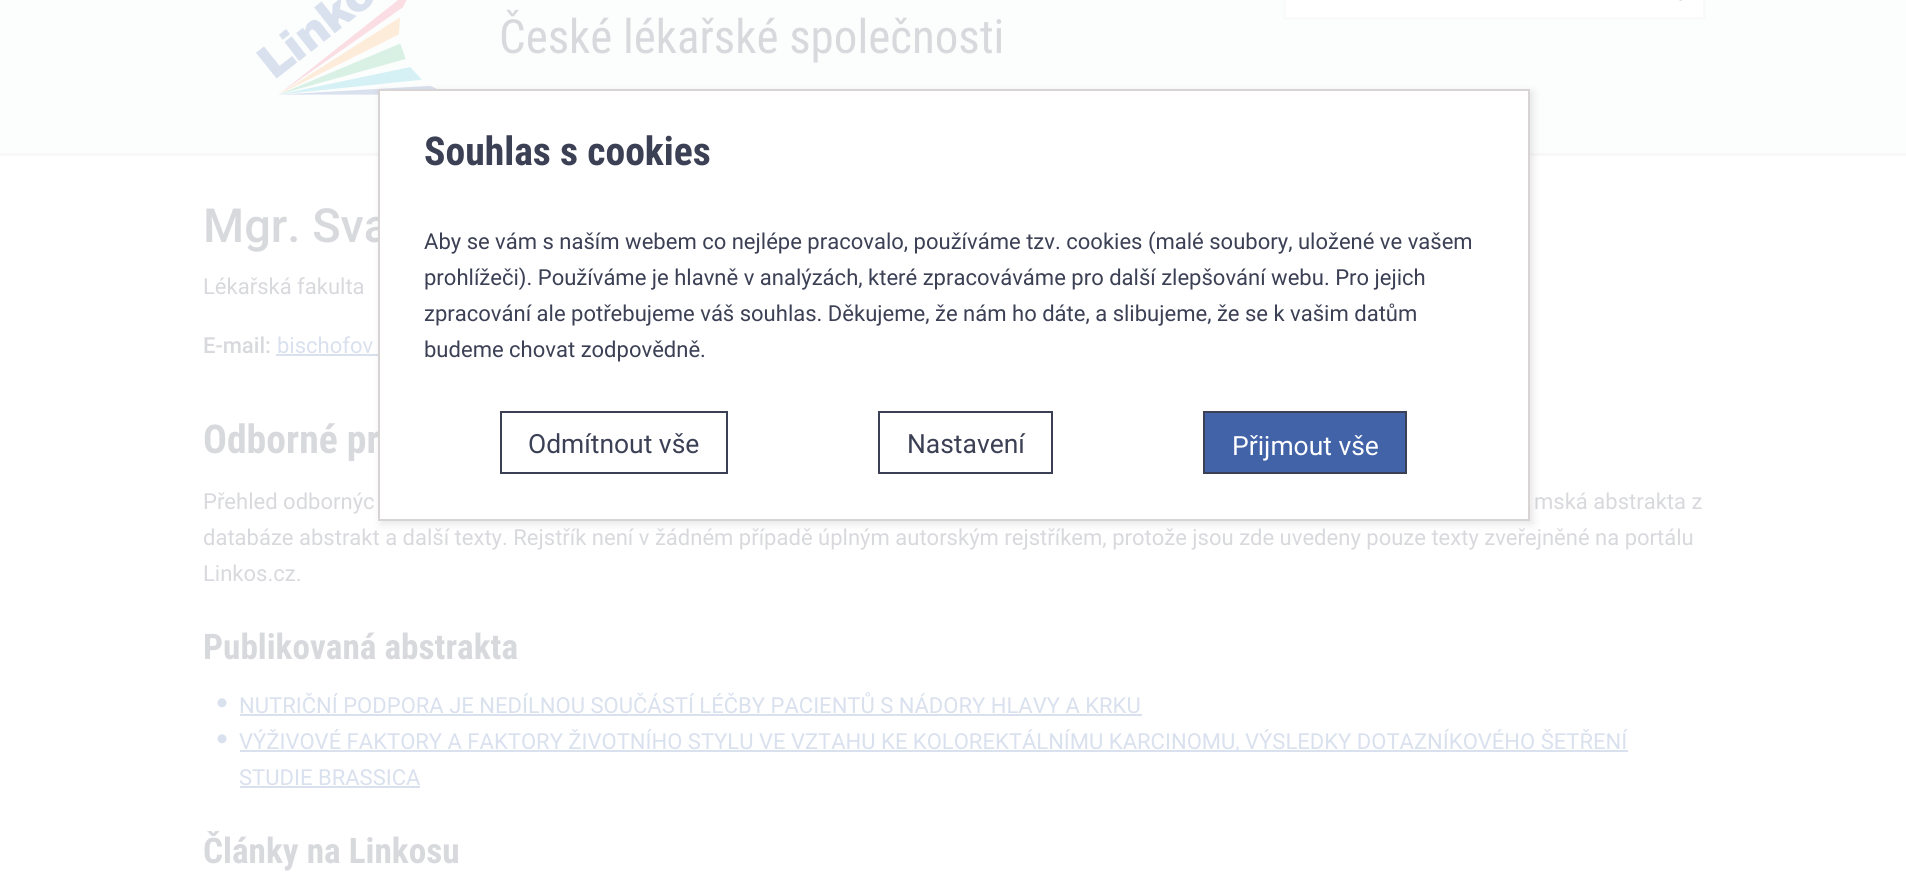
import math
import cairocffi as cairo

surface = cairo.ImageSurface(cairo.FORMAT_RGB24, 1906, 886)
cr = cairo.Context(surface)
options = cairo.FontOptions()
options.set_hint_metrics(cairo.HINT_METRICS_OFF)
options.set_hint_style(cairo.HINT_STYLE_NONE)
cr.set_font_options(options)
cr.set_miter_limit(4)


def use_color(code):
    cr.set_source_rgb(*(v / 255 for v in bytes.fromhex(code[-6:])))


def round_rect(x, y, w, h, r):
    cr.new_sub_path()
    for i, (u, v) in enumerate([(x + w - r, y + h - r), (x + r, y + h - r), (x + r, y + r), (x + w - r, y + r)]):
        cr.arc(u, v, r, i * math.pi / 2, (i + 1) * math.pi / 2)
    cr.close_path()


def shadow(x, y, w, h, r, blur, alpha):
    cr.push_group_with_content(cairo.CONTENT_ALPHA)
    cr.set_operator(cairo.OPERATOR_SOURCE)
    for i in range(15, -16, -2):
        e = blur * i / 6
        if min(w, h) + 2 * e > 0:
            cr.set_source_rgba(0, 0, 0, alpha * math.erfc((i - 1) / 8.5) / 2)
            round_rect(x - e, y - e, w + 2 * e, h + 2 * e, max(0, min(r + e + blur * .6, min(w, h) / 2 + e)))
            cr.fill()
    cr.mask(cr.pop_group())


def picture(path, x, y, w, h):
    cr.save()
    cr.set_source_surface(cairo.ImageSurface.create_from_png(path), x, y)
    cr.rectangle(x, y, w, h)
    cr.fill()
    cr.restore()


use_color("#ffffff")
cr.paint()
use_color("#fcfdfd")
cr.rectangle(0, 0, 1906, 153)
cr.fill()
use_color("#f8f8f8")
cr.rectangle(0, 153, 1906, 3)
cr.fill()
use_color("#ffffff")
cr.rectangle(1284.5, -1.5, 420, 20)
cr.fill_preserve()
use_color("#fafafa")
cr.set_line_width(3)
cr.stroke()
picture("img1.png", 1679, 0, 4, 1)
picture("img2.png", 256, 0, 181, 95)
cr.select_font_face("Roboto Condensed")
cr.set_font_size(48)
use_color("#d8d9dd")
cr.move_to(499, 53)
cr.show_text("České lékařské společnosti")
cr.select_font_face("Roboto Medium")
cr.move_to(203, 242)
cr.show_text("Mgr. Sva")
cr.select_font_face("Roboto")
cr.set_font_size(22.5)
cr.move_to(203, 294)
cr.show_text("Lékařská fakulta")
cr.select_font_face("Roboto Medium")
cr.move_to(203, 353)
cr.show_text("E-mail:")
cr.select_font_face("Roboto")
use_color("#d9e0ee")
cr.move_to(277, 353)
cr.show_text("bischofov")
cr.rectangle(276, 354, 102, 2)
cr.fill()
cr.select_font_face("Roboto Condensed", cairo.FONT_SLANT_NORMAL, cairo.FONT_WEIGHT_BOLD)
cr.set_font_size(40.5)
use_color("#d8d9dd")
cr.move_to(203, 453)
cr.show_text("Odborné pr")
cr.select_font_face("Roboto")
cr.set_font_size(22.5)
cr.move_to(203, 509)
cr.show_text("Přehled odbornýc")
cr.move_to(1534, 509)
cr.show_text("mská abstrakta z")
cr.move_to(203, 545)
cr.show_text("databáze abstrakt a další texty. Rejstřík není v žádném případě úplným autorským rejstříkem, protože jsou zde uvedeny pouze texty zveřejněné na portálu")
cr.move_to(203, 581)
cr.show_text("Linkos.cz.")
cr.select_font_face("Roboto Condensed", cairo.FONT_SLANT_NORMAL, cairo.FONT_WEIGHT_BOLD)
cr.set_font_size(36)
cr.move_to(203, 659)
cr.show_text("Publikovaná abstrakta")
picture("img3.png", 217, 698, 10, 10)
cr.select_font_face("Roboto")
cr.set_font_size(22.5)
use_color("#d9e0ee")
cr.move_to(239, 713)
cr.show_text("NUTRIČNÍ PODPORA JE NEDÍLNOU SOUČÁSTÍ LÉČBY PACIENTŮ S NÁDORY HLAVY A KRKU")
cr.rectangle(240, 714, 902, 2)
cr.fill()
picture("img3.png", 217, 734, 10, 10)
cr.rectangle(240, 750, 1388, 2)
cr.fill()
cr.move_to(239, 749)
cr.show_text("VÝŽIVOVÉ FAKTORY A FAKTORY ŽIVOTNÍHO STYLU VE VZTAHU KE KOLOREKTÁLNÍMU KARCINOMU, VÝSLEDKY DOTAZNÍKOVÉHO ŠETŘENÍ")
cr.move_to(239, 785)
cr.show_text("STUDIE BRASSICA")
cr.rectangle(240, 786, 180, 2)
cr.fill()
cr.select_font_face("Roboto Condensed", cairo.FONT_SLANT_NORMAL, cairo.FONT_WEIGHT_BOLD)
cr.set_font_size(36)
use_color("#d8d9dd")
cr.move_to(203, 863)
cr.show_text("Články na Linkosu")
use_color("#000000")
shadow(381, 92, 1152, 432, 0, 4.5, 0.1)
use_color("#ffffff")
cr.rectangle(379, 90, 1150, 430)
cr.fill_preserve()
use_color("#d9d4d4")
cr.set_line_width(2)
cr.stroke()
cr.set_font_size(40.5)
use_color("#3c4055")
cr.move_to(424, 165)
cr.show_text("Souhlas s cookies")
cr.select_font_face("Roboto")
cr.set_font_size(22.5)
cr.move_to(424, 249)
cr.show_text("Aby se vám s naším webem co nejlépe pracovalo, používáme tzv. cookies (malé soubory, uložené ve vašem")
cr.move_to(424, 285)
cr.show_text("prohlížeči). Používáme je hlavně v analýzách, které zpracováváme pro další zlepšování webu. Pro jejich")
cr.move_to(424, 321)
cr.show_text("zpracování ale potřebujeme váš souhlas. Děkujeme, že nám ho dáte, a slibujeme, že se k vašim datům")
cr.move_to(424, 357)
cr.show_text("budeme chovat zodpovědně.")
cr.rectangle(501, 412, 226, 61)
cr.stroke()
cr.set_font_size(27)
cr.move_to(528, 453)
cr.show_text("Odmítnout vše")
cr.rectangle(879, 412, 173, 61)
cr.stroke()
cr.move_to(907, 453)
cr.show_text("Nastavení")
use_color("#4263a8")
cr.rectangle(1204, 412, 202, 61)
cr.fill_preserve()
use_color("#3c4055")
cr.stroke()
use_color("#ffffff")
cr.move_to(1232, 455)
cr.show_text("Přijmout vše")
surface.write_to_png("result.png")
